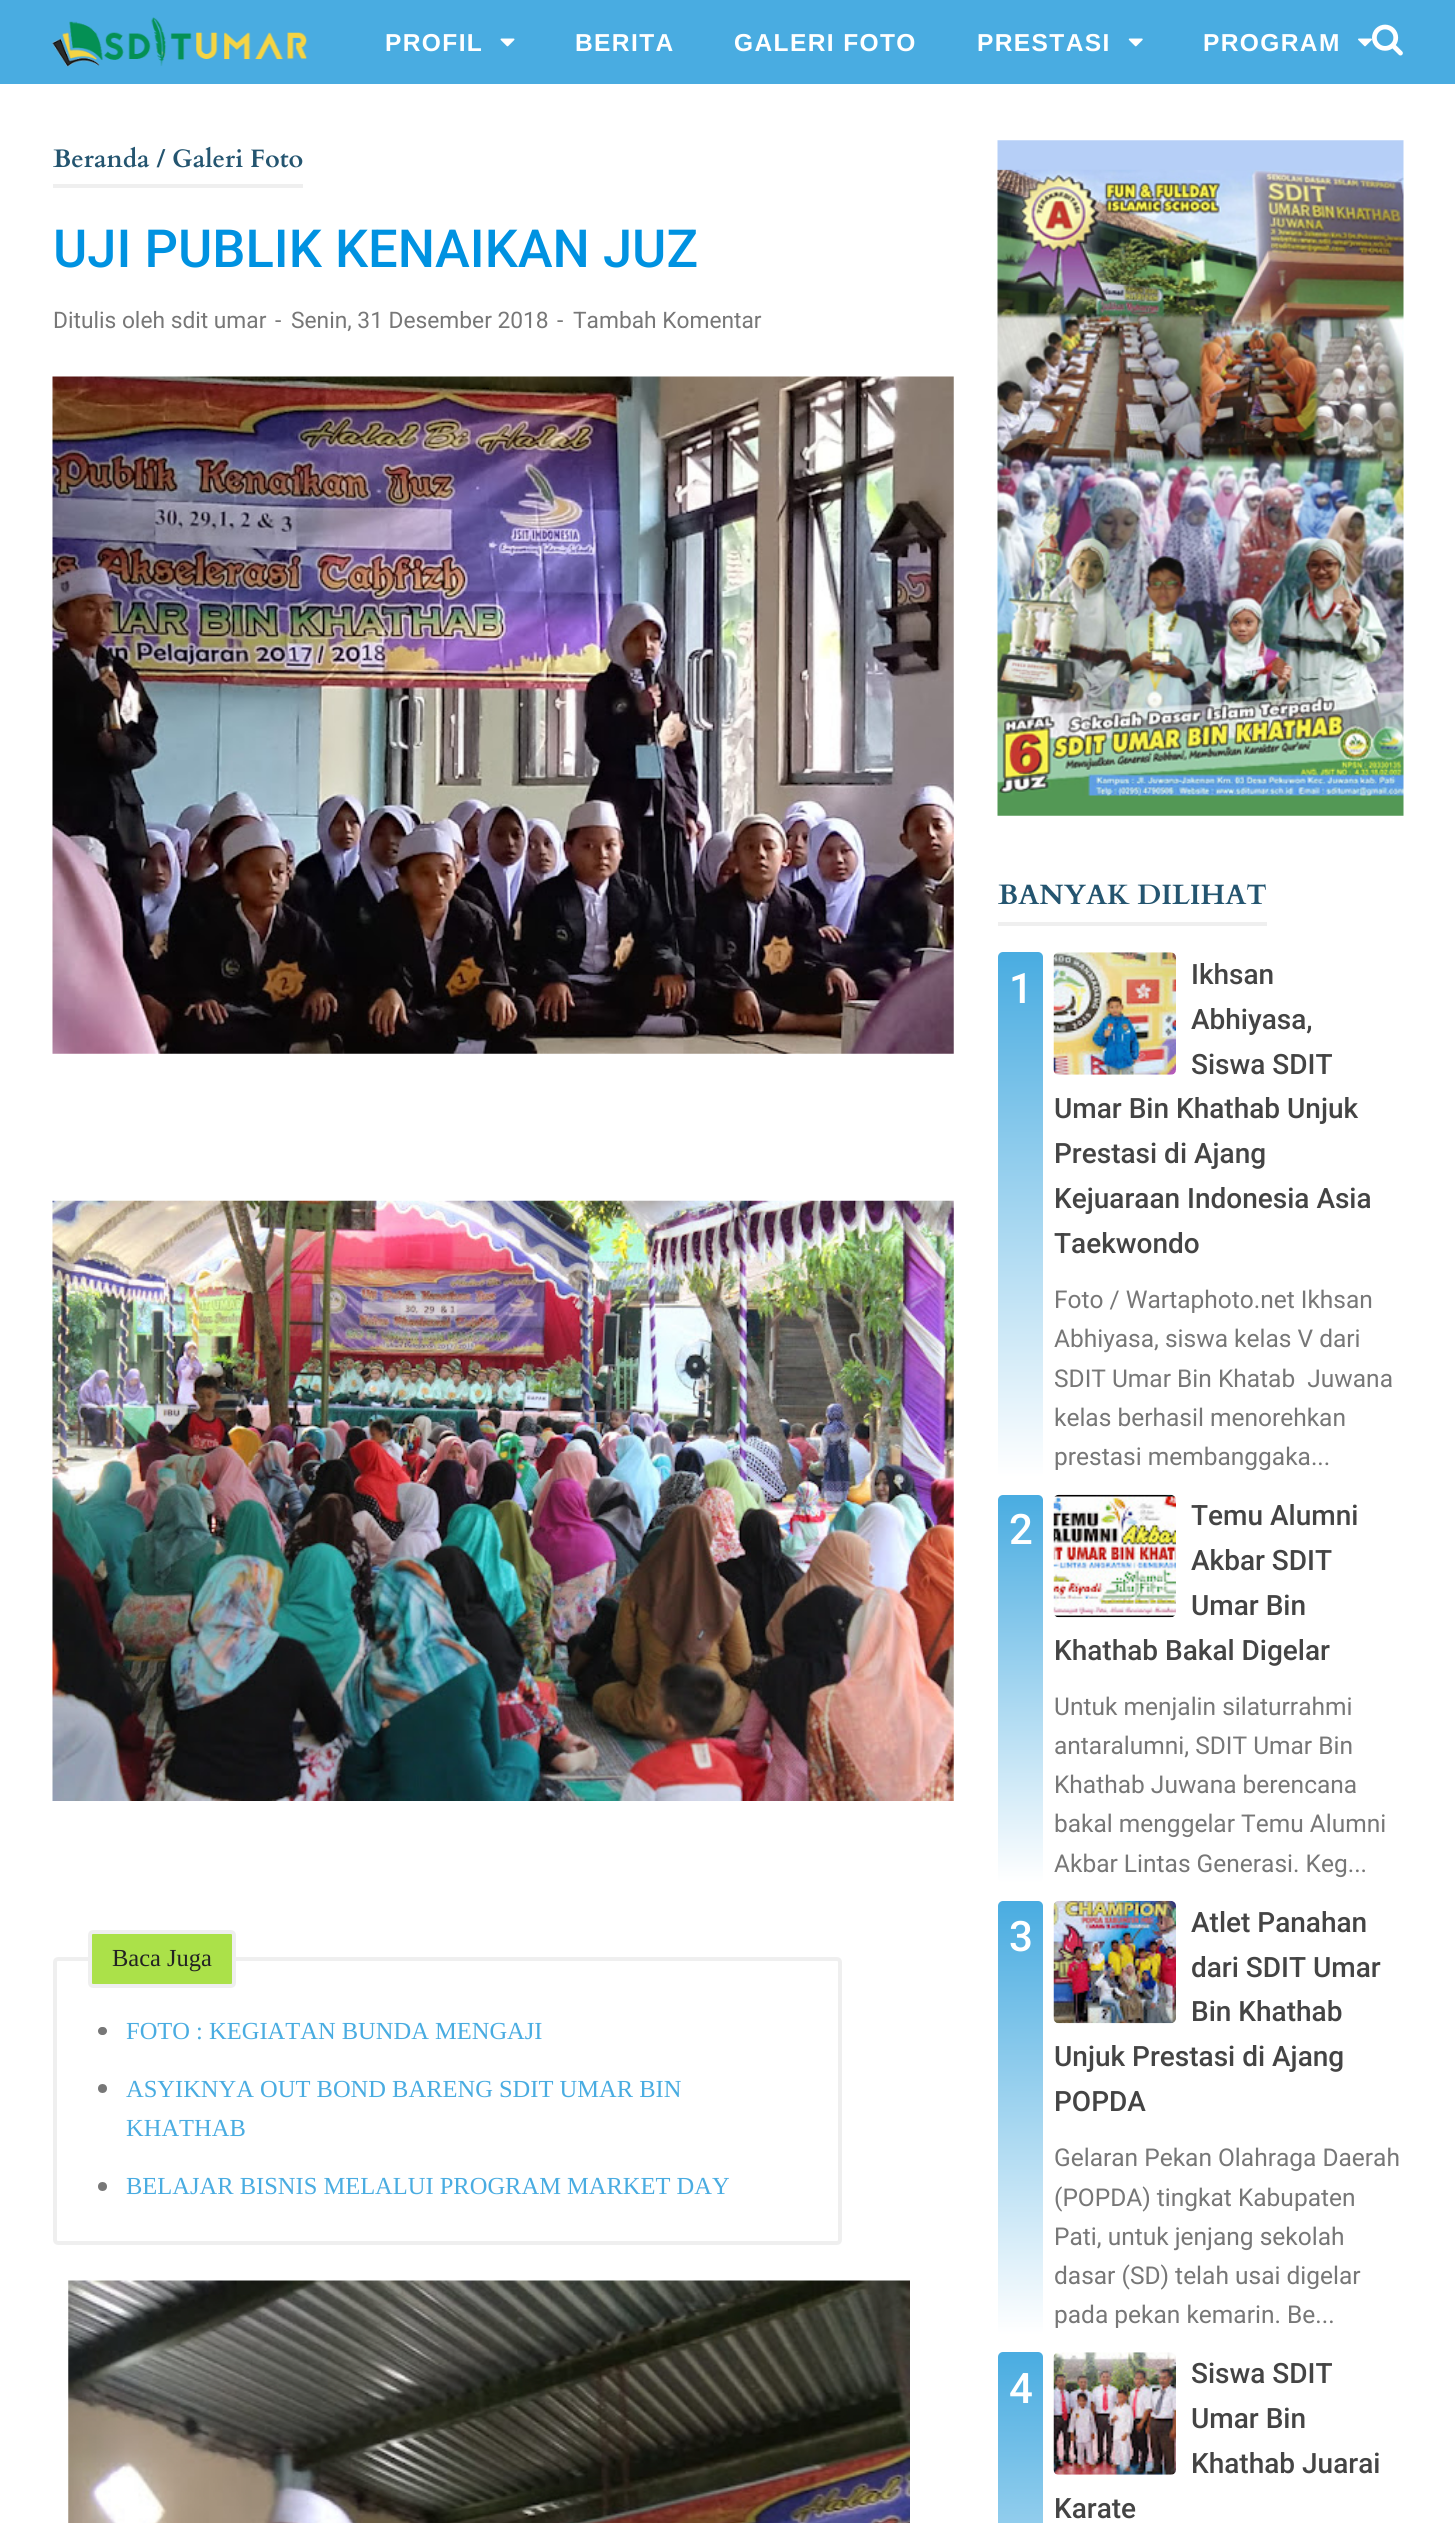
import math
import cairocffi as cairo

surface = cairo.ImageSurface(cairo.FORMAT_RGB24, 1455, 2523)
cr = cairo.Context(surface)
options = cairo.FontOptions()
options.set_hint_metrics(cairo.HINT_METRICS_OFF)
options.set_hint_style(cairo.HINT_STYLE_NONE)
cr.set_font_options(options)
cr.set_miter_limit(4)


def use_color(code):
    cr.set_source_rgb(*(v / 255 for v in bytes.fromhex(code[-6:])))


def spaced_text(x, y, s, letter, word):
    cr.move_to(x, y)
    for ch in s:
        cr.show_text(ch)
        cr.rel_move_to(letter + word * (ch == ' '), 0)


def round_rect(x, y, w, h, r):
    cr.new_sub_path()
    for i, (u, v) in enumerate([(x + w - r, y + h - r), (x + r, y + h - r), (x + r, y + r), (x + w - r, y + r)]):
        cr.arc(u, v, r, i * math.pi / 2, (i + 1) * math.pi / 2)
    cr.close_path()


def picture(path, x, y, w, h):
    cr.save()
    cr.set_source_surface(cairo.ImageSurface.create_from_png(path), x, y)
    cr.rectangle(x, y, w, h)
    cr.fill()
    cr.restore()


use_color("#ffffff")
cr.paint()
use_color("#49ace1")
cr.rectangle(0, 0, 1455, 84)
cr.fill()
picture("img1.png", 52, 17, 255, 50)
cr.select_font_face("Arimo", cairo.FONT_SLANT_NORMAL, cairo.FONT_WEIGHT_BOLD)
cr.set_font_size(24.5)
use_color("#ffffff")
spaced_text(385, 51, "PROFIL", 1.4, 0)
picture("img2.png", 500, 38, 15, 9)
spaced_text(575, 51, "BERITA", 1.4, 0)
spaced_text(734, 51, "GALERI FOTO", 1.4, 0)
spaced_text(977, 51, "PRESTASI", 1.4, 0)
picture("img3.png", 1128, 38, 15, 9)
spaced_text(1203, 51, "PROGRAM", 1.4, 0)
picture("img4.png", 1358, 38, 14, 9)
picture("img5.png", 1372, 24, 31, 32)
use_color("#efefef")
cr.rectangle(53, 184, 250, 4)
cr.fill()
cr.select_font_face("Cardo", cairo.FONT_SLANT_NORMAL, cairo.FONT_WEIGHT_BOLD)
cr.set_font_size(25.25)
use_color("#245570")
cr.move_to(53, 167)
cr.show_text("Beranda / Galeri Foto")
cr.select_font_face("Roboto Medium")
cr.set_font_size(52.5)
use_color("#0092e1")
cr.move_to(53, 267)
cr.show_text("UJI PUBLIK KENAIKAN JUZ")
cr.select_font_face("Roboto")
cr.set_font_size(22.75)
use_color("#777777")
cr.move_to(53, 328)
cr.show_text("Ditulis oleh sdit umar")
cr.move_to(275, 328)
cr.show_text("-")
cr.move_to(291, 328)
cr.show_text("Senin, 31 Desember 2018")
cr.move_to(557, 328)
cr.show_text("-")
cr.move_to(573, 328)
cr.show_text("Tambah Komentar")
picture("img6.png", 52, 376, 902, 678)
picture("img7.png", 52, 1200, 902, 601)
round_rect(55, 1959, 785, 284, 3)
use_color("#efefef")
cr.set_line_width(4)
cr.stroke()
use_color("#abe149")
round_rect(90, 1932, 144, 54, 3)
cr.fill_preserve()
use_color("#efefef")
cr.stroke()
cr.select_font_face("Liberation Serif")
cr.set_font_size(24.5)
use_color("#222222")
cr.move_to(112, 1966)
cr.show_text("Baca Juga")
use_color("#777777")
round_rect(98, 2027, 9, 8, 4)
cr.fill()
use_color("#49ace1")
cr.move_to(126, 2039)
cr.show_text("FOTO : KEGIATAN BUNDA MENGAJI")
use_color("#777777")
cr.new_path()
cr.arc(102.5, 2088.5, 4.5, 0, 2 * math.pi)
cr.fill()
use_color("#49ace1")
cr.move_to(126, 2097)
cr.show_text("ASYIKNYA OUT BOND BARENG SDIT UMAR BIN")
cr.move_to(126, 2136)
cr.show_text("KHATHAB")
use_color("#777777")
cr.new_path()
cr.arc(102.5, 2186.5, 4.5, 0, 2 * math.pi)
cr.fill()
use_color("#49ace1")
cr.move_to(126, 2194)
cr.show_text("BELAJAR BISNIS MELALUI PROGRAM MARKET DAY")
picture("img8.png", 68, 2280, 842, 243)
picture("img9.png", 997, 140, 407, 676)
use_color("#efefef")
cr.rectangle(998, 922, 269, 4)
cr.fill()
cr.select_font_face("Cardo", cairo.FONT_SLANT_NORMAL, cairo.FONT_WEIGHT_BOLD)
cr.set_font_size(28)
use_color("#245570")
cr.move_to(998, 904)
cr.show_text("BANYAK DILIHAT")
picture("img10.png", 1053, 952, 123, 123)
gradient = cairo.LinearGradient(1020, 952, 1020, 1477)
gradient.add_color_stop_rgba(0, 0.286, 0.675, 0.882, 1)
gradient.add_color_stop_rgba(1, 1, 1, 1, 1)
cr.set_source(gradient)
round_rect(998, 952, 45, 525, 5)
cr.fill()
cr.select_font_face("Roboto Medium")
cr.set_font_size(42)
use_color("#ffffff")
cr.move_to(1009, 1003)
cr.show_text("1")
cr.set_font_size(28)
use_color("#444444")
cr.move_to(1191, 984)
cr.show_text("Ikhsan")
cr.move_to(1191, 1029)
cr.show_text("Abhiyasa,")
cr.move_to(1191, 1074)
cr.show_text("Siswa SDIT")
cr.move_to(1054, 1118)
cr.show_text("Umar Bin Khathab Unjuk")
cr.move_to(1054, 1163)
cr.show_text("Prestasi di Ajang")
cr.move_to(1054, 1208)
cr.show_text("Kejuaraan Indonesia Asia")
cr.move_to(1054, 1253)
cr.show_text("Taekwondo")
cr.select_font_face("Roboto")
cr.set_font_size(24.5)
use_color("#777777")
cr.move_to(1054, 1308)
cr.show_text("Foto / Wartaphoto.net Ikhsan")
cr.move_to(1054, 1347)
cr.show_text("Abhiyasa, siswa kelas V dari")
cr.move_to(1054, 1387)
cr.show_text("SDIT Umar Bin Khatab  Juwana")
cr.move_to(1054, 1426)
cr.show_text("kelas berhasil menorehkan")
cr.move_to(1054, 1465)
cr.show_text("prestasi membanggaka...")
picture("img11.png", 1053, 1494, 123, 124)
gradient = cairo.LinearGradient(1020, 1495, 1020, 1883)
gradient.add_color_stop_rgba(0, 0.286, 0.675, 0.882, 1)
gradient.add_color_stop_rgba(1, 1, 1, 1, 1)
cr.set_source(gradient)
round_rect(998, 1495, 45, 388, 5)
cr.fill()
cr.select_font_face("Roboto Medium")
cr.set_font_size(42)
use_color("#ffffff")
cr.move_to(1009, 1544)
cr.show_text("2")
cr.set_font_size(28)
use_color("#444444")
cr.move_to(1191, 1525)
cr.show_text("Temu Alumni")
cr.move_to(1191, 1570)
cr.show_text("Akbar SDIT")
cr.move_to(1191, 1615)
cr.show_text("Umar Bin")
cr.move_to(1054, 1660)
cr.show_text("Khathab Bakal Digelar")
cr.select_font_face("Roboto")
cr.set_font_size(24.5)
use_color("#777777")
cr.move_to(1054, 1715)
cr.show_text("Untuk menjalin silaturrahmi")
cr.move_to(1054, 1754)
cr.show_text("antaralumni, SDIT Umar Bin")
cr.move_to(1054, 1793)
cr.show_text("Khathab Juwana berencana")
cr.move_to(1054, 1832)
cr.show_text("bakal menggelar Temu Alumni")
cr.move_to(1054, 1872)
cr.show_text("Akbar Lintas Generasi. Keg...")
picture("img12.png", 1053, 1900, 123, 124)
gradient = cairo.LinearGradient(1020, 1901, 1020, 2335)
gradient.add_color_stop_rgba(0, 0.286, 0.675, 0.882, 1)
gradient.add_color_stop_rgba(1, 1, 1, 1, 1)
cr.set_source(gradient)
round_rect(998, 1901, 45, 434, 5)
cr.fill()
cr.select_font_face("Roboto Medium")
cr.set_font_size(42)
use_color("#ffffff")
cr.move_to(1009, 1951)
cr.show_text("3")
cr.set_font_size(28)
use_color("#444444")
cr.move_to(1191, 1932)
cr.show_text("Atlet Panahan")
cr.move_to(1191, 1977)
cr.show_text("dari SDIT Umar")
cr.move_to(1191, 2021)
cr.show_text("Bin Khathab")
cr.move_to(1054, 2066)
cr.show_text("Unjuk Prestasi di Ajang")
cr.move_to(1054, 2111)
cr.show_text("POPDA")
cr.select_font_face("Roboto")
cr.set_font_size(24.5)
use_color("#777777")
cr.move_to(1054, 2166)
cr.show_text("Gelaran Pekan Olahraga Daerah")
cr.move_to(1054, 2206)
cr.show_text("(POPDA) tingkat Kabupaten")
cr.move_to(1054, 2245)
cr.show_text("Pati, untuk jenjang sekolah")
cr.move_to(1054, 2284)
cr.show_text("dasar (SD) telah usai digelar")
cr.move_to(1054, 2323)
cr.show_text("pada pekan kemarin. Be...")
picture("img13.png", 1053, 2352, 123, 123)
gradient = cairo.LinearGradient(1020, 2352, 1020, 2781)
gradient.add_color_stop_rgba(0, 0.286, 0.675, 0.882, 1)
gradient.add_color_stop_rgba(1, 1, 1, 1, 1)
cr.set_source(gradient)
round_rect(998, 2352, 45, 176, 5)
cr.fill()
cr.select_font_face("Roboto Medium")
cr.set_font_size(42)
use_color("#ffffff")
cr.move_to(1009, 2403)
cr.show_text("4")
cr.set_font_size(28)
use_color("#444444")
cr.move_to(1191, 2383)
cr.show_text("Siswa SDIT")
cr.move_to(1191, 2428)
cr.show_text("Umar Bin")
cr.move_to(1191, 2473)
cr.show_text("Khathab Juarai")
cr.move_to(1054, 2518)
cr.show_text("Karate")
surface.write_to_png("result.png")
